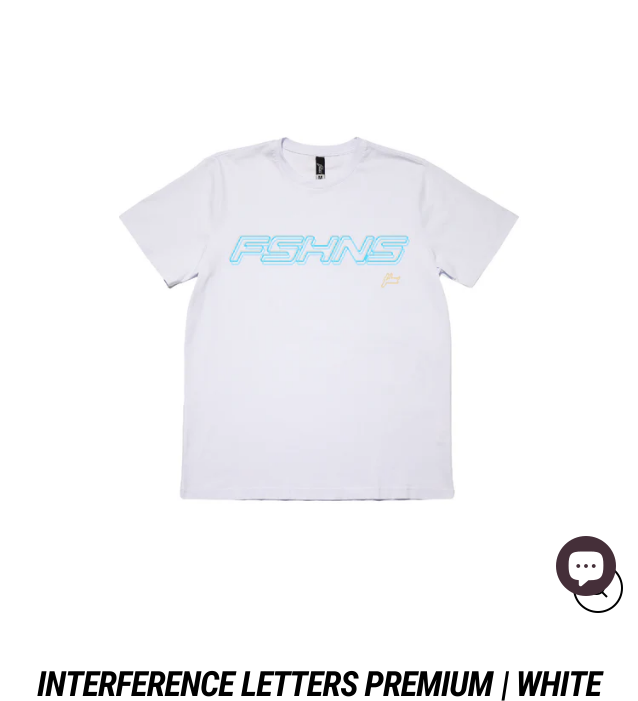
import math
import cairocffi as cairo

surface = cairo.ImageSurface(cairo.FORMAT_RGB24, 638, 701)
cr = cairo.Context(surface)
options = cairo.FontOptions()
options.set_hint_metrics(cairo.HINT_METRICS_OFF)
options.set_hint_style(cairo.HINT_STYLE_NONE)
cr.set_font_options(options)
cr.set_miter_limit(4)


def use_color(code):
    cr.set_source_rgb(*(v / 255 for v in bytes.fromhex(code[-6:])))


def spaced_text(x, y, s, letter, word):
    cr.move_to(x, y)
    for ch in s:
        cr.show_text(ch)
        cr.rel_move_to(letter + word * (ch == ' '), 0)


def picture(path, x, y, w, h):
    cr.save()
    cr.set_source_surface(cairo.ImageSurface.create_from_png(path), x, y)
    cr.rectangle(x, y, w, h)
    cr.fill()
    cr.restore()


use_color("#ffffff")
cr.paint()
picture("img2.png", 0, 0, 638, 638)
cr.arc(598, 588, 24, 0, 2 * math.pi)
use_color("#000000")
cr.stroke()
cr.new_path()
cr.move_to(604, 586.5)
cr.curve_to(604, 596.5, 589, 596.5, 589, 586.5)
cr.curve_to(589, 576.5, 604, 576.5, 604, 586.5)
cr.close_path()
cr.move_to(607, 597)
cr.line_to(602, 592)
cr.stroke()
use_color("#452f39")
cr.arc(586, 566, 30, 0, 2 * math.pi)
cr.fill()
picture("img1.png", 568, 551, 36, 36)
cr.select_font_face("Roboto Condensed", cairo.FONT_SLANT_ITALIC, cairo.FONT_WEIGHT_BOLD)
cr.set_font_size(34.8)
use_color("#000000")
spaced_text(37, 696, "INTERFERENCE LETTERS PREMIUM", -0.9, 0)
spaced_text(501, 696, "| WHITE", -0.9, 0)
surface.write_to_png("result.png")
